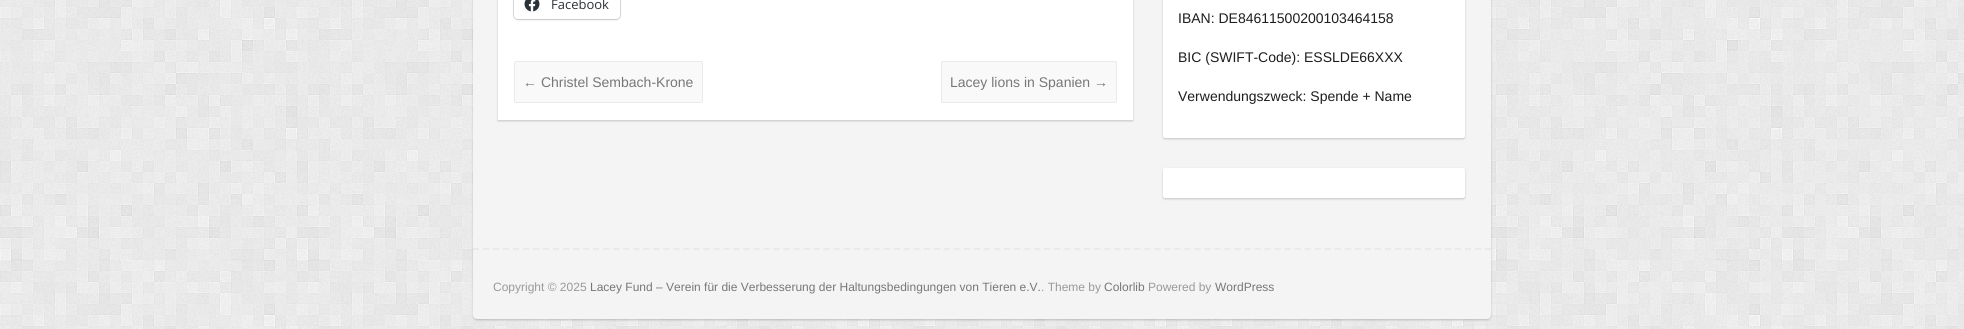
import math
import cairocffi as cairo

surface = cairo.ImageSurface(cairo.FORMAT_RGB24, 1964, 329)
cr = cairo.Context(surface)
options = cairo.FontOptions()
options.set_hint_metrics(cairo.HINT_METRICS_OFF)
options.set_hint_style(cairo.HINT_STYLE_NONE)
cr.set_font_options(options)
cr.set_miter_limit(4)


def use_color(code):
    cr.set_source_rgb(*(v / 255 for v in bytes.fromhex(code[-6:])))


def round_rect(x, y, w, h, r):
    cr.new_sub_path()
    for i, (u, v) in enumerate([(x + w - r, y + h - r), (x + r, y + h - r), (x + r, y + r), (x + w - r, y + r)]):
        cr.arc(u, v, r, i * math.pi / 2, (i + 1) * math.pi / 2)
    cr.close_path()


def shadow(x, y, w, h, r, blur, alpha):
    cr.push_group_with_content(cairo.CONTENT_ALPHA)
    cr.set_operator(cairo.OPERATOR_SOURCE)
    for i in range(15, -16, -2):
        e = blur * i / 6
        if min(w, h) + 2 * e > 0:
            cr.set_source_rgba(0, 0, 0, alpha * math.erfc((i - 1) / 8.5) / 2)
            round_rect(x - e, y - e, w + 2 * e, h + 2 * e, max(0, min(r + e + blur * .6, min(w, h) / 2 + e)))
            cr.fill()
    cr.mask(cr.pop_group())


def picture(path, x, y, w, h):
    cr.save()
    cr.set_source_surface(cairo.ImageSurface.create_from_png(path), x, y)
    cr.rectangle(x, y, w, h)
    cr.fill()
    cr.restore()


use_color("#ffffff")
cr.paint()
picture("img1.png", 0, 0, 1964, 329)
use_color("#000000")
shadow(473, -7, 1018, 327, 4, 1, 0.2)
use_color("#f4f4f4")
round_rect(473, -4, 1018, 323, 4)
cr.fill()
use_color("#000000")
shadow(498, -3, 635, 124, 0, 1, 0.2)
use_color("#ffffff")
cr.rectangle(498, 0, 635, 120)
cr.fill()
round_rect(513.5, -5.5, 107, 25, 4.5)
use_color("#e0e0e0")
cr.set_line_width(1)
cr.stroke()
use_color("#000000")
shadow(514, -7, 106, 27, 4, 1, 0.12)
use_color("#ffffff")
round_rect(514, -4, 106, 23, 4)
cr.fill()
picture("img2.png", 524, 0, 16, 12)
cr.select_font_face("Open Sans")
cr.set_font_size(13)
use_color("#2c3338")
cr.move_to(551, 9)
cr.show_text("Facebook")
use_color("#f9f9f9")
round_rect(514.5, 61.5, 188, 41, 1.5)
cr.fill_preserve()
use_color("#eaeaea")
cr.stroke()
cr.select_font_face("Liberation Sans")
cr.set_font_size(14)
use_color("#777777")
cr.move_to(523, 87)
cr.show_text("← Christel Sembach-Krone")
use_color("#f9f9f9")
round_rect(941.5, 61.5, 175, 41, 1.5)
cr.fill_preserve()
use_color("#eaeaea")
cr.stroke()
use_color("#777777")
cr.move_to(950, 87)
cr.show_text("Lacey lions in Spanien →")
use_color("#000000")
shadow(1163, -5, 302, 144, 2, 1, 0.2)
use_color("#ffffff")
round_rect(1163, -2, 302, 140, 2)
cr.fill()
use_color("#1d1d1d")
cr.move_to(1178, 23)
cr.show_text("IBAN: DE84611500200103464158")
cr.move_to(1178, 62)
cr.show_text("BIC (SWIFT-Code): ESSLDE66XXX")
cr.move_to(1178, 101)
cr.show_text("Verwendungszweck: Spende + Name")
use_color("#000000")
shadow(1163, 169, 302, 30, 2, 1, 0.2)
use_color("#ffffff")
round_rect(1163, 168, 302, 30, 2)
cr.fill()
cr.new_path()
cr.move_to(473, 249)
cr.line_to(1491, 249)
use_color("#eaeaea")
cr.set_line_width(2)
cr.set_dash([6, 4.02])
cr.stroke()
cr.set_font_size(12)
use_color("#999999")
cr.move_to(493, 291)
cr.show_text("Copyright © 2025")
use_color("#777777")
cr.move_to(590, 291)
cr.show_text("Lacey Fund – Verein für die Verbesserung der Haltungsbedingungen von Tieren e.V.")
use_color("#999999")
cr.move_to(1041, 291)
cr.show_text(". Theme by")
use_color("#777777")
cr.move_to(1104, 291)
cr.show_text("Colorlib")
use_color("#999999")
cr.move_to(1148, 291)
cr.show_text("Powered by")
use_color("#777777")
cr.move_to(1215, 291)
cr.show_text("WordPress")
surface.write_to_png("result.png")
